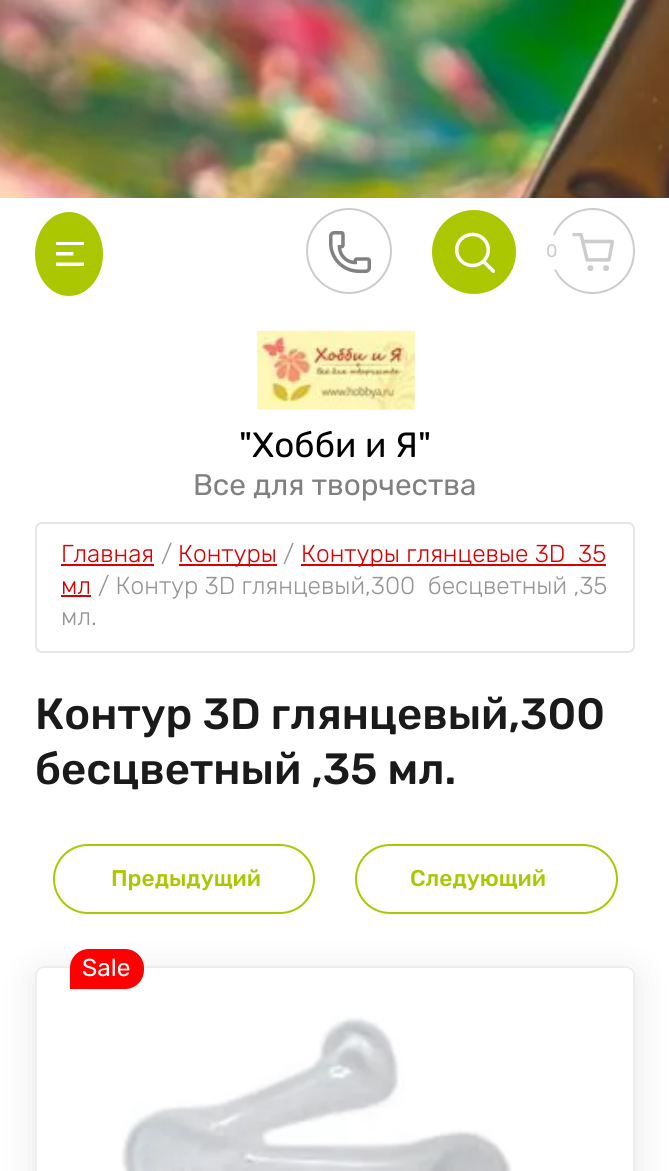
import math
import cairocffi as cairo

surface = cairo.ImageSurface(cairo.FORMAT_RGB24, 669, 1171)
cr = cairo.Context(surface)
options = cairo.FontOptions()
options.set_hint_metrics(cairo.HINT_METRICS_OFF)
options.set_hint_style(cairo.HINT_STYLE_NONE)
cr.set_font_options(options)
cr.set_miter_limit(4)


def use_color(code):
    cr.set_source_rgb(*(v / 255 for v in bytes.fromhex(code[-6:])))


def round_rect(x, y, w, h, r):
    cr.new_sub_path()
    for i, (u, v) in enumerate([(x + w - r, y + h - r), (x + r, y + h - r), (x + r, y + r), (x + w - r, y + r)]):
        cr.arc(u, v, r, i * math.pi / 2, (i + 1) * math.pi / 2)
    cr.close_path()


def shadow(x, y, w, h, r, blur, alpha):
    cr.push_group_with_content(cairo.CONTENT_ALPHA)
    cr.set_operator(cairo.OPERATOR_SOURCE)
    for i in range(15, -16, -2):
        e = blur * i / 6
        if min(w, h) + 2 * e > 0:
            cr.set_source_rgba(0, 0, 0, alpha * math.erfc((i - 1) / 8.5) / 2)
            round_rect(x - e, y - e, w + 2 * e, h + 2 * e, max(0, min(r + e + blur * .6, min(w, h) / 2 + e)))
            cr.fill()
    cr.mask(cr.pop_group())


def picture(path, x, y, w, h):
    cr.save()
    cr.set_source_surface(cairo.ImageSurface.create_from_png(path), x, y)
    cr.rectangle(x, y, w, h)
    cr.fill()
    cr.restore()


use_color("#ffffff")
cr.paint()
picture("img1.png", 0, 0, 669, 198)
use_color("#abc702")
cr.new_path()
cr.move_to(69, 212)
cr.curve_to(88, 212, 103, 231, 103, 254)
cr.curve_to(103, 277, 88, 296, 69, 296)
cr.curve_to(50, 296, 35, 277, 35, 254)
cr.curve_to(35, 231, 50, 212, 69, 212)
cr.close_path()
cr.fill()
picture("img2.png", 56, 242, 28, 24)
cr.arc(349, 251, 42, 0, 2 * math.pi)
use_color("#cccccc")
cr.stroke()
picture("img3.png", 329, 231, 42, 42)
use_color("#abc702")
cr.arc(474, 252, 42, 0, 2 * math.pi)
cr.fill()
picture("img4.png", 454, 232, 41, 41)
round_rect(551, 209, 83, 84, 41.5)
use_color("#cccccc")
cr.stroke()
use_color("#ffffff")
cr.arc(551.5, 252.5, 17.5, 0, 2 * math.pi)
cr.fill()
cr.select_font_face("Rubik")
cr.set_font_size(18)
use_color("#cccccc")
cr.move_to(546, 257)
cr.show_text("0")
picture("img5.png", 572, 233, 42, 38)
picture("img6.png", 257, 330, 158, 80)
cr.set_font_size(35)
use_color("#000000")
cr.move_to(239, 457)
cr.show_text("\"Хобби и Я\"")
cr.set_font_size(29.75)
use_color("#808080")
cr.move_to(193, 495)
cr.show_text("Все для творчества")
round_rect(36, 523, 598, 129, 6)
use_color("#e6e6e6")
cr.stroke()
cr.select_font_face("Rubik Light")
cr.set_font_size(24.5)
use_color("#d90000")
cr.move_to(61, 562)
cr.show_text("Главная")
cr.rectangle(61, 564, 93, 2)
cr.fill()
use_color("#959595")
cr.move_to(161, 562)
cr.show_text("/")
use_color("#d90000")
cr.rectangle(179, 564, 98, 2)
cr.fill()
cr.move_to(178, 562)
cr.show_text("Контуры")
use_color("#959595")
cr.move_to(283, 562)
cr.show_text("/")
use_color("#d90000")
cr.rectangle(301, 564, 305, 2)
cr.fill()
cr.move_to(301, 562)
cr.show_text("Контуры глянцевые 3D  35")
cr.move_to(61, 594)
cr.show_text("мл")
cr.rectangle(61, 595, 30, 2)
cr.fill()
use_color("#959595")
cr.move_to(98, 594)
cr.show_text("/ Контур 3D глянцевый,300  бесцветный ,35")
cr.move_to(61, 625)
cr.show_text("мл.")
cr.select_font_face("Rubik Medium")
cr.set_font_size(43.75)
use_color("#1a1a1a")
cr.move_to(35, 729)
cr.show_text("Контур 3D глянцевый,300")
cr.move_to(35, 784)
cr.show_text("бесцветный ,35 мл.")
round_rect(54, 845, 260, 68, 34)
use_color("#abc702")
cr.stroke()
cr.set_font_size(22.75)
cr.move_to(111, 886)
cr.show_text("Предыдущий")
round_rect(356, 845, 261, 68, 34)
cr.stroke()
cr.move_to(410, 886)
cr.show_text("Следующий")
cr.save()
cr.set_fill_rule(cairo.FILL_RULE_EVEN_ODD)
cr.new_path()
cr.move_to(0, 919)
cr.line_to(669, 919)
cr.line_to(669, 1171)
cr.line_to(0, 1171)
cr.close_path()
cr.move_to(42, 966)
cr.line_to(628, 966)
cr.curve_to(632, 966, 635, 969, 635, 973)
cr.line_to(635, 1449)
cr.curve_to(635, 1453, 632, 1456, 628, 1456)
cr.line_to(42, 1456)
cr.curve_to(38, 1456, 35, 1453, 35, 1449)
cr.line_to(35, 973)
cr.curve_to(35, 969, 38, 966, 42, 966)
cr.close_path()
cr.clip()
use_color("#000000")
shadow(35, 973, 600, 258, 7, 17.5, 0.1)
cr.restore()
picture("img7.png", 121, 1016, 391, 155)
round_rect(36, 967, 598, 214, 8)
use_color("#ededed")
cr.stroke()
use_color("#ff0000")
cr.new_path()
cr.move_to(89, 949)
cr.line_to(125, 949)
cr.curve_to(135.5, 949, 144, 957.5, 144, 968)
cr.line_to(144, 970)
cr.curve_to(144, 980.5, 135.5, 989, 125, 989)
cr.line_to(70, 989)
cr.line_to(70, 968)
cr.curve_to(70, 957.5, 78.5, 949, 89, 949)
cr.close_path()
cr.fill()
cr.select_font_face("Rubik")
cr.set_font_size(24.5)
use_color("#ffffff")
cr.move_to(82, 976)
cr.show_text("Sale")
surface.write_to_png("result.png")
